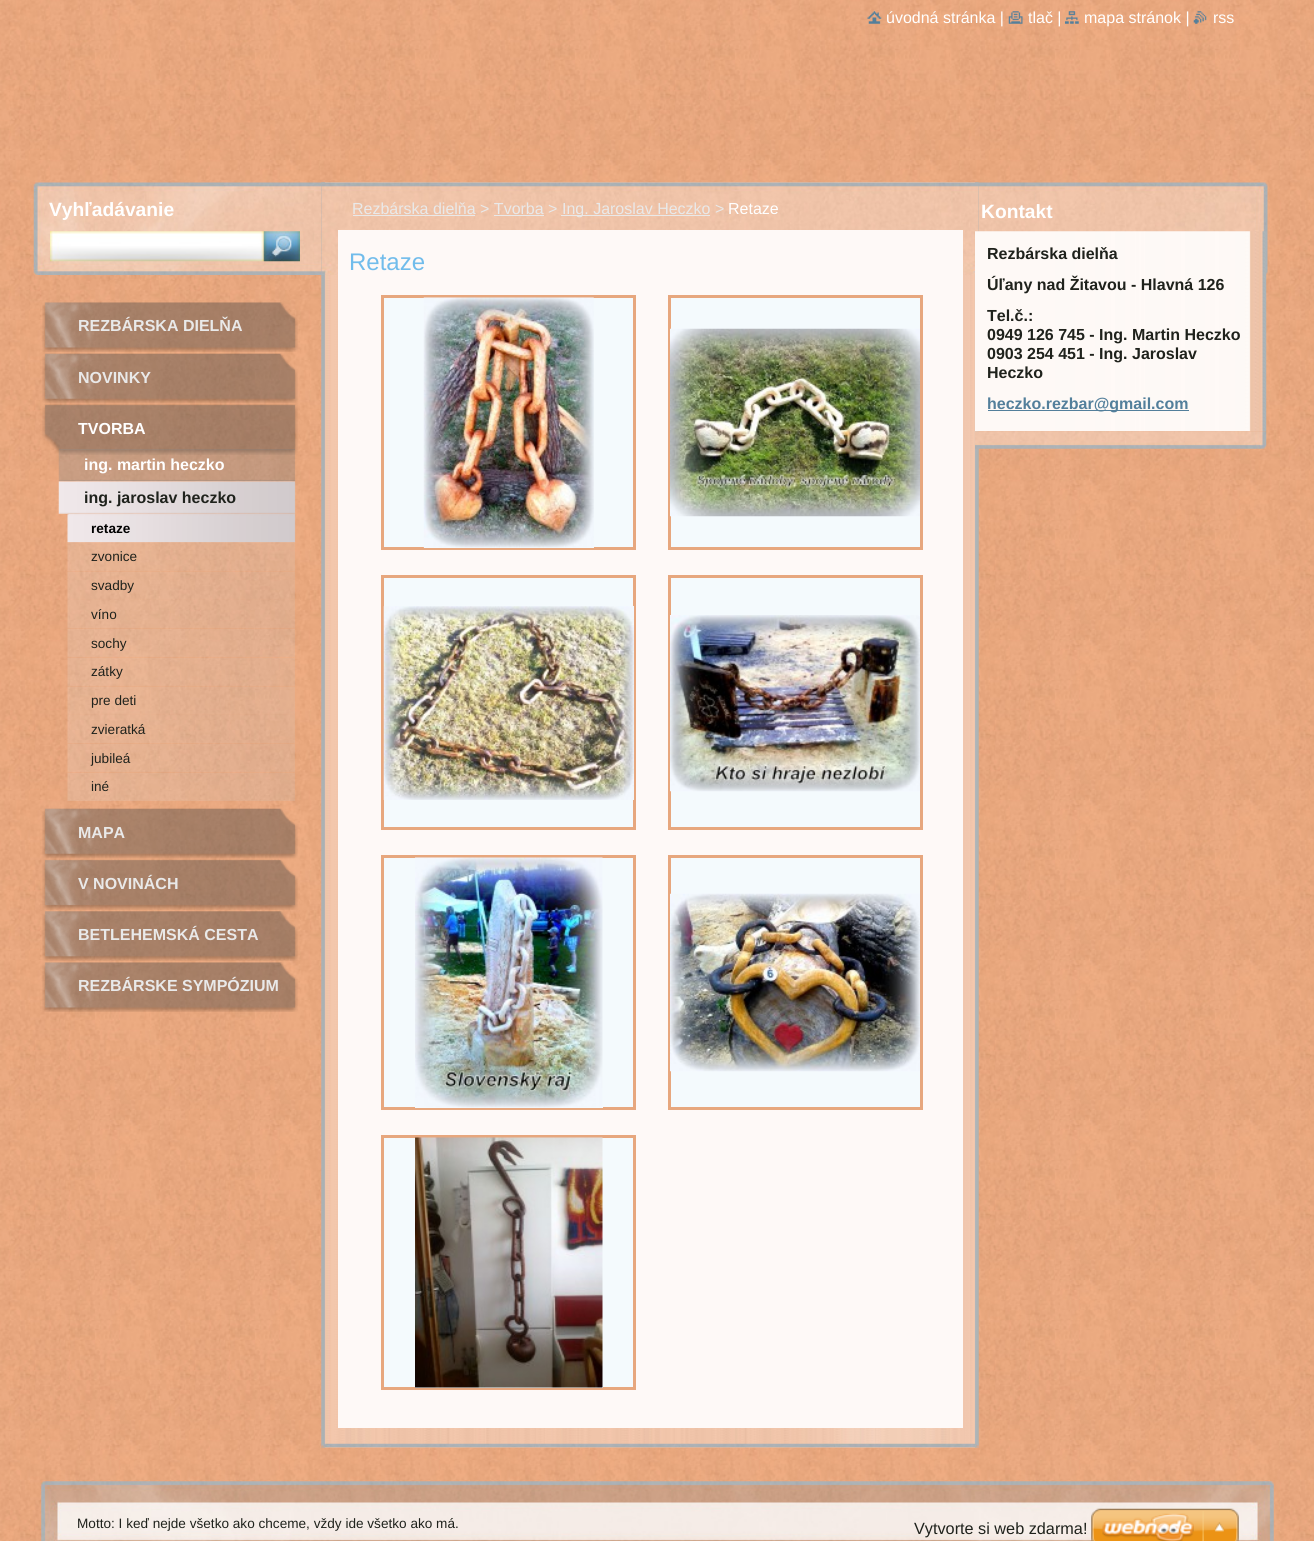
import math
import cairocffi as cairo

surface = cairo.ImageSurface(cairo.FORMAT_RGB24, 1314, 1541)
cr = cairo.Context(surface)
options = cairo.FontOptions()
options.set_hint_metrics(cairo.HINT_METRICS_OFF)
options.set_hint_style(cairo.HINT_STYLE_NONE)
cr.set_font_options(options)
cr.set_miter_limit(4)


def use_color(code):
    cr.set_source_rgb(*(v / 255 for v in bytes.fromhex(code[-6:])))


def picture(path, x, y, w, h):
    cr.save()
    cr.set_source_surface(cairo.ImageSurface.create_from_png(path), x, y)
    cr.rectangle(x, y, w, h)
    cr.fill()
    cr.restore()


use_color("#ffffff")
cr.paint()
picture("img1.png", 0, 0, 1314, 1541)
picture("img2.png", 867, 11, 15, 13)
cr.select_font_face("Liberation Sans")
cr.set_font_size(16)
use_color("#ffffff")
cr.move_to(886, 23)
cr.show_text("úvodná stránka |")
picture("img3.png", 1008, 11, 15, 13)
cr.move_to(1028, 23)
cr.show_text("tlač |")
picture("img4.png", 1065, 11, 14, 13)
cr.move_to(1084, 23)
cr.show_text("mapa stránok |")
picture("img5.png", 1193, 11, 14, 13)
cr.move_to(1213, 23)
cr.show_text("rss")
picture("img6.png", 33, 182, 1235, 93)
cr.select_font_face("Liberation Sans", cairo.FONT_SLANT_NORMAL, cairo.FONT_WEIGHT_BOLD)
cr.set_font_size(19.25)
cr.move_to(49, 216)
cr.show_text("Vyhľadávanie")
picture("img7.png", 50, 231, 214, 31)
picture("img8.png", 263, 231, 37, 31)
picture("img9.png", 321, 182, 658, 1266)
picture("img10.png", 321, 182, 658, 93)
cr.select_font_face("Liberation Sans")
cr.set_font_size(16)
use_color("#e9e9e9")
cr.move_to(352, 214)
cr.show_text("Rezbárska dielňa > Tvorba >")
cr.rectangle(353, 215, 122, 1)
cr.fill()
cr.rectangle(561, 215, 149, 1)
cr.fill()
cr.move_to(562, 214)
cr.show_text("Ing. Jaroslav Heczko >")
use_color("#ffffff")
cr.move_to(728, 214)
cr.show_text("Retaze")
use_color("#e9e9e9")
cr.rectangle(494, 215, 50, 1)
cr.fill()
use_color("#fef9f7")
cr.rectangle(338, 230, 625, 1198)
cr.fill()
cr.set_font_size(24)
use_color("#71bceb")
cr.move_to(349, 270)
cr.show_text("Retaze")
use_color("#f4fafd")
cr.rectangle(382.5, 296.5, 252, 252)
cr.fill_preserve()
use_color("#e7a77e")
cr.set_line_width(3)
cr.stroke()
use_color("#f4fafd")
cr.rectangle(424, 547, 170, 1)
cr.fill()
picture("img11.png", 423, 297, 171, 251)
cr.rectangle(669.5, 296.5, 252, 252)
cr.fill_preserve()
use_color("#e7a77e")
cr.stroke()
picture("img12.png", 670, 328, 250, 189)
use_color("#f4fafd")
cr.rectangle(382.5, 576.5, 252, 252)
cr.fill_preserve()
use_color("#e7a77e")
cr.stroke()
use_color("#f4fafd")
cr.rectangle(633, 606, 1, 194)
cr.fill()
picture("img13.png", 383, 606, 251, 194)
cr.rectangle(669.5, 576.5, 252, 252)
cr.fill_preserve()
use_color("#e7a77e")
cr.stroke()
picture("img14.png", 670, 615, 250, 177)
use_color("#f4fafd")
cr.rectangle(382.5, 856.5, 252, 252)
cr.fill_preserve()
use_color("#e7a77e")
cr.stroke()
use_color("#f4fafd")
cr.rectangle(415, 1107, 188, 1)
cr.fill()
picture("img15.png", 415, 857, 188, 251)
cr.rectangle(669.5, 856.5, 252, 252)
cr.fill_preserve()
use_color("#e7a77e")
cr.stroke()
picture("img16.png", 670, 893, 250, 179)
use_color("#f4fafd")
cr.rectangle(382.5, 1136.5, 252, 252)
cr.fill_preserve()
use_color("#e7a77e")
cr.stroke()
use_color("#f4fafd")
cr.rectangle(415, 1387, 188, 1)
cr.fill()
picture("img17.png", 415, 1137, 188, 251)
picture("img18.png", 321, 1443, 658, 5)
cr.select_font_face("Liberation Sans", cairo.FONT_SLANT_NORMAL, cairo.FONT_WEIGHT_BOLD)
cr.set_font_size(19.25)
use_color("#ffffff")
cr.move_to(981, 218)
cr.show_text("Kontakt")
picture("img19.png", 975, 231, 292, 201)
cr.set_font_size(16)
use_color("#1f221c")
cr.move_to(987, 259)
cr.show_text("Rezbárska dielňa")
cr.move_to(987, 290)
cr.show_text("Úľany nad Žitavou - Hlavná 126")
cr.move_to(987, 321)
cr.show_text("Tel.č.:")
cr.move_to(987, 340)
cr.show_text("0949 126 745 - Ing. Martin Heczko")
cr.move_to(987, 359)
cr.show_text("0903 254 451 - Ing. Jaroslav")
cr.move_to(987, 378)
cr.show_text("Heczko")
use_color("#537f9b")
cr.rectangle(988, 410, 201, 1)
cr.fill()
cr.move_to(987, 409)
cr.show_text("heczko.rezbar@gmail.com")
picture("img20.png", 975, 431, 292, 18)
picture("img21.png", 42, 302, 256, 50)
use_color("#e9e9e9")
cr.move_to(78, 331)
cr.show_text("REZBÁRSKA DIELŇA")
picture("img22.png", 42, 353, 256, 51)
cr.move_to(78, 383)
cr.show_text("NOVINKY")
picture("img23.png", 42, 404, 256, 51)
use_color("#ffffff")
cr.move_to(78, 434)
cr.show_text("TVORBA")
picture("img24.png", 58, 449, 238, 32)
cr.move_to(84, 470)
cr.show_text("ing. martin heczko")
picture("img25.png", 58, 481, 238, 33)
use_color("#1f221c")
cr.move_to(84, 503)
cr.show_text("ing. jaroslav heczko")
picture("img26.png", 67, 514, 229, 29)
cr.set_font_size(13.6)
use_color("#010101")
cr.move_to(91, 533)
cr.show_text("retaze")
picture("img27.png", 67, 542, 228, 29)
cr.select_font_face("Liberation Sans")
use_color("#1f221c")
cr.move_to(91, 561)
cr.show_text("zvonice")
picture("img28.png", 67, 571, 228, 29)
cr.move_to(91, 590)
cr.show_text("svadby")
picture("img29.png", 67, 600, 228, 29)
cr.move_to(91, 619)
cr.show_text("víno")
picture("img30.png", 67, 629, 228, 29)
cr.move_to(91, 648)
cr.show_text("sochy")
picture("img31.png", 67, 657, 228, 29)
cr.move_to(91, 676)
cr.show_text("zátky")
picture("img32.png", 67, 686, 228, 29)
cr.move_to(91, 705)
cr.show_text("pre deti")
picture("img33.png", 67, 715, 228, 29)
cr.move_to(91, 734)
cr.show_text("zvieratká")
picture("img34.png", 67, 744, 228, 29)
cr.move_to(91, 763)
cr.show_text("jubileá")
picture("img35.png", 67, 772, 228, 29)
cr.move_to(91, 791)
cr.show_text("iné")
picture("img36.png", 42, 808, 256, 51)
cr.select_font_face("Liberation Sans", cairo.FONT_SLANT_NORMAL, cairo.FONT_WEIGHT_BOLD)
cr.set_font_size(16)
use_color("#e9e9e9")
cr.move_to(78, 838)
cr.show_text("MAPA")
picture("img37.png", 42, 859, 256, 51)
cr.move_to(78, 889)
cr.show_text("V NOVINÁCH")
picture("img38.png", 42, 911, 256, 50)
cr.move_to(78, 940)
cr.show_text("BETLEHEMSKÁ CESTA")
picture("img39.png", 42, 962, 256, 50)
cr.move_to(78, 991)
cr.show_text("REZBÁRSKE SYMPÓZIUM")
picture("img40.png", 41, 1481, 1233, 60)
cr.select_font_face("Liberation Sans")
cr.set_font_size(13.6)
use_color("#1f221c")
cr.move_to(77, 1528)
cr.show_text("Motto: I keď nejde všetko ako chceme, vždy ide všetko ako má.")
cr.set_font_size(16.25)
cr.move_to(914, 1534)
cr.show_text("Vytvorte si web zdarma!")
picture("img41.png", 1091, 1508, 148, 33)
surface.write_to_png("result.png")
